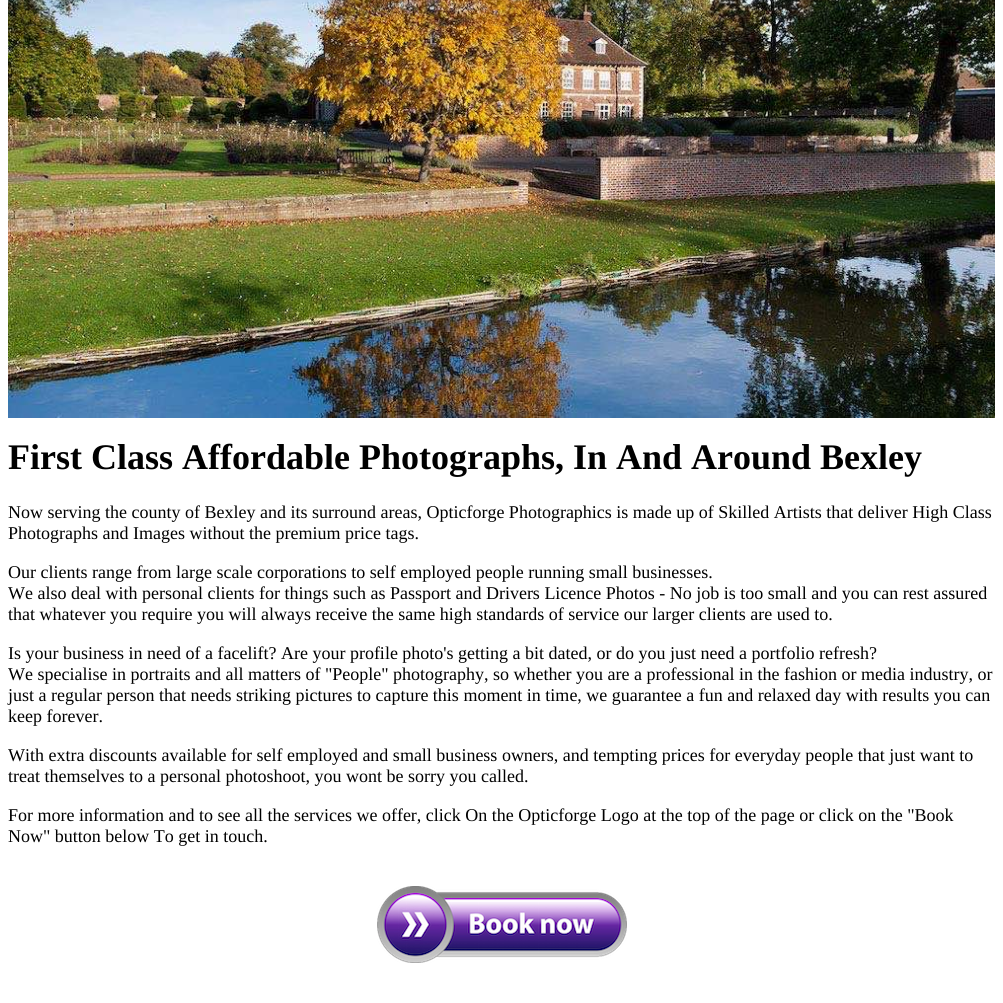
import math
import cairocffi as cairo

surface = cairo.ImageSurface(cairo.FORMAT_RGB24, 1003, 1003)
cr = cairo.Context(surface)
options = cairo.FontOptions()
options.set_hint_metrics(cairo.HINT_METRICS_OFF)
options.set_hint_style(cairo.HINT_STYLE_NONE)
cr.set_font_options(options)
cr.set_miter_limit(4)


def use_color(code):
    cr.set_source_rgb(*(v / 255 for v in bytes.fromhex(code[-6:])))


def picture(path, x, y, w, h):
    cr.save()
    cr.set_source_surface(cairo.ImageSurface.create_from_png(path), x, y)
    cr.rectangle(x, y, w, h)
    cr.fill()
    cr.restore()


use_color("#ffffff")
cr.paint()
picture("img1.png", 8, 0, 987, 418)
cr.select_font_face("Liberation Serif", cairo.FONT_SLANT_NORMAL, cairo.FONT_WEIGHT_BOLD)
cr.set_font_size(36)
use_color("#000000")
cr.move_to(8, 469)
cr.show_text("First Class Affordable Photographs, In And Around Bexley")
cr.select_font_face("Liberation Serif")
cr.set_font_size(18)
cr.move_to(8, 518)
cr.show_text("Now serving the county of Bexley and its surround areas, Opticforge Photographics is made up of Skilled Artists that deliver High Class")
cr.move_to(8, 539)
cr.show_text("Photographs and Images without the premium price tags.")
cr.move_to(8, 578)
cr.show_text("Our clients range from large scale corporations to self employed people running small businesses.")
cr.move_to(8, 599)
cr.show_text("We also deal with personal clients for things such as Passport and Drivers Licence Photos - No job is too small and you can rest assured")
cr.move_to(8, 620)
cr.show_text("that whatever you require you will always receive the same high standards of service our larger clients are used to.")
cr.move_to(8, 659)
cr.show_text("Is your business in need of a facelift? Are your profile photo's getting a bit dated, or do you just need a portfolio refresh?")
cr.move_to(8, 680)
cr.show_text("We specialise in portraits and all matters of \"People\" photography, so whether you are a professional in the fashion or media industry, or")
cr.move_to(8, 701)
cr.show_text("just a regular person that needs striking pictures to capture this moment in time, we guarantee a fun and relaxed day with results you can")
cr.move_to(8, 722)
cr.show_text("keep forever.")
cr.move_to(8, 761)
cr.show_text("With extra discounts available for self employed and small business owners, and tempting prices for everyday people that just want to")
cr.move_to(8, 782)
cr.show_text("treat themselves to a personal photoshoot, you wont be sorry you called.")
cr.move_to(8, 821)
cr.show_text("For more information and to see all the services we offer, click On the Opticforge Logo at the top of the page or click on the \"Book")
cr.move_to(8, 842)
cr.show_text("Now\" button below To get in touch.")
picture("img2.png", 377, 886, 250, 77)
surface.write_to_png("result.png")
